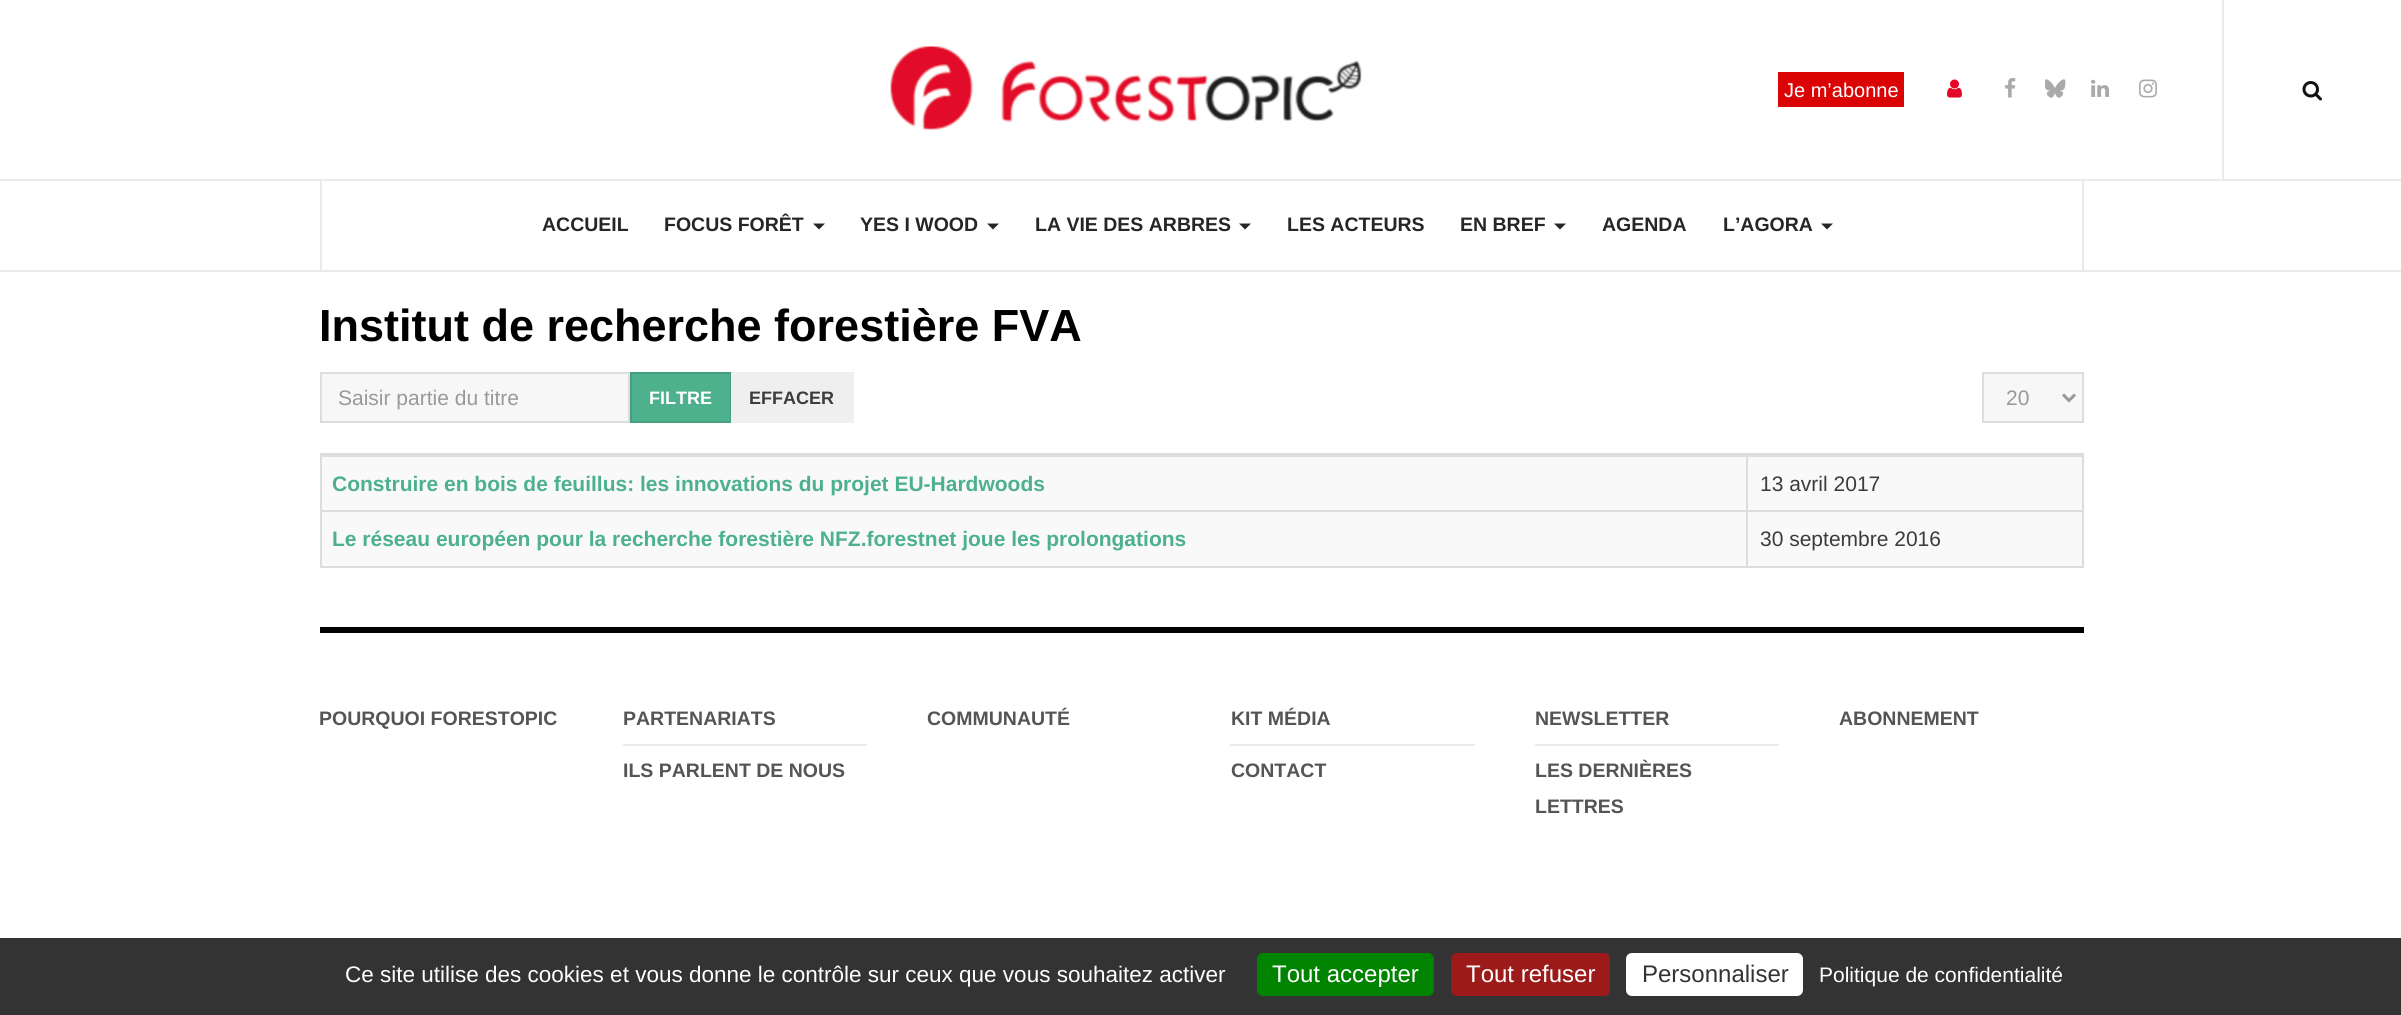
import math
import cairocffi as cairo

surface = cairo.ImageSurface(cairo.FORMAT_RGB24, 2401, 1015)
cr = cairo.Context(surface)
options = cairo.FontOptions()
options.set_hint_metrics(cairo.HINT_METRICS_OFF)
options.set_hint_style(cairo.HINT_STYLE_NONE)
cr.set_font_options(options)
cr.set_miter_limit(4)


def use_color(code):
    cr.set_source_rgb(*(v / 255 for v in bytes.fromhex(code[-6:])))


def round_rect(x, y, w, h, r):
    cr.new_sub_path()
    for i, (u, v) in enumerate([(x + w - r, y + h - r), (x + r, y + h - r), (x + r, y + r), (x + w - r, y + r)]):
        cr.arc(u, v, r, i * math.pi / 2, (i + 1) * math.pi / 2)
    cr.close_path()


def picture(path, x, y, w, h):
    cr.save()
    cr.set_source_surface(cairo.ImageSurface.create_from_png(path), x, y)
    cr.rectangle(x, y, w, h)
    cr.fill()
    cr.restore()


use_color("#ffffff")
cr.paint()
use_color("#eaeaea")
cr.rectangle(2082, 180, 2, 90)
cr.fill()
cr.rectangle(320, 180, 2, 90)
cr.fill()
cr.rectangle(0, 179, 2401, 2)
cr.fill()
picture("img1.png", 890, 46, 472, 84)
use_color("#db0404")
cr.rectangle(1778, 72, 126, 35)
cr.fill()
cr.select_font_face("Liberation Sans")
cr.set_font_size(20)
use_color("#ffffff")
cr.move_to(1784, 97)
cr.show_text("Je m’abonne")
picture("img2.png", 1947, 79, 15, 19)
picture("img3.png", 2005, 78, 11, 20)
picture("img4.png", 2045, 79, 21, 19)
picture("img5.png", 2091, 79, 18, 18)
picture("img6.png", 2139, 79, 18, 19)
use_color("#eaeaea")
cr.rectangle(2222, 0, 2, 179)
cr.fill()
picture("img7.png", 2302, 81, 20, 20)
cr.rectangle(0, 270, 2401, 2)
cr.fill()
cr.select_font_face("Liberation Sans", cairo.FONT_SLANT_NORMAL, cairo.FONT_WEIGHT_BOLD)
cr.set_font_size(19.5)
use_color("#262626")
cr.move_to(542, 231)
cr.show_text("ACCUEIL")
cr.move_to(664, 231)
cr.show_text("FOCUS FORÊT")
cr.new_path()
cr.move_to(813, 223.5)
cr.line_to(825, 223.5)
cr.line_to(819, 229.5)
cr.close_path()
cr.fill()
cr.move_to(860, 231)
cr.show_text("YES I WOOD")
cr.new_path()
cr.move_to(987, 223.5)
cr.line_to(999, 223.5)
cr.line_to(993, 229.5)
cr.close_path()
cr.fill()
cr.move_to(1035, 231)
cr.show_text("LA VIE DES ARBRES")
cr.new_path()
cr.move_to(1239, 223.5)
cr.line_to(1251, 223.5)
cr.line_to(1245, 229.5)
cr.close_path()
cr.fill()
cr.move_to(1287, 231)
cr.show_text("LES ACTEURS")
cr.move_to(1460, 231)
cr.show_text("EN BREF")
cr.new_path()
cr.move_to(1554, 223.5)
cr.line_to(1566, 223.5)
cr.line_to(1560, 229.5)
cr.close_path()
cr.fill()
cr.move_to(1602, 231)
cr.show_text("AGENDA")
cr.move_to(1723, 231)
cr.show_text("L’AGORA")
cr.new_path()
cr.move_to(1821, 223.5)
cr.line_to(1833, 223.5)
cr.line_to(1827, 229.5)
cr.close_path()
cr.fill()
cr.set_font_size(45)
use_color("#000000")
cr.move_to(319, 341)
cr.show_text("Institut de recherche forestière FVA")
use_color("#f7f7f7")
cr.rectangle(321, 373, 308, 49)
cr.fill_preserve()
use_color("#dddddd")
cr.stroke()
cr.select_font_face("Liberation Sans")
cr.set_font_size(21)
use_color("#999999")
cr.move_to(338, 405)
cr.show_text("Saisir partie du titre")
use_color("#4db18d")
cr.rectangle(631, 373, 100, 49)
cr.fill_preserve()
use_color("#459f7f")
cr.stroke()
cr.select_font_face("Liberation Sans", cairo.FONT_SLANT_NORMAL, cairo.FONT_WEIGHT_BOLD)
cr.set_font_size(18)
use_color("#ffffff")
cr.move_to(649, 404)
cr.show_text("FILTRE")
use_color("#efefef")
cr.rectangle(731, 372, 123, 51)
cr.fill()
use_color("#3c3c3c")
cr.move_to(749, 404)
cr.show_text("EFFACER")
use_color("#f7f7f7")
cr.rectangle(1983, 373, 100, 49)
cr.fill_preserve()
use_color("#dddddd")
cr.stroke()
cr.new_path()
cr.move_to(2063, 394.5)
cr.line_to(2069, 400.5)
cr.line_to(2075, 394.5)
use_color("#999999")
cr.set_line_width(3)
cr.stroke()
cr.select_font_face("Liberation Sans")
cr.set_font_size(21)
cr.move_to(2006, 405)
cr.show_text("20")
use_color("#dddddd")
cr.rectangle(320, 453, 1764, 2)
cr.fill()
cr.rectangle(2082, 453, 2, 114)
cr.fill()
cr.rectangle(320, 566, 1764, 2)
cr.fill()
cr.rectangle(320, 453, 2, 114)
cr.fill()
use_color("#f9f9f9")
cr.rectangle(322, 457, 1760, 53)
cr.fill()
use_color("#dddddd")
cr.rectangle(1746, 455, 338, 2)
cr.fill()
cr.rectangle(1746, 510, 338, 2)
cr.fill()
use_color("#f9f9f9")
cr.rectangle(322, 512, 1760, 54)
cr.fill()
use_color("#dddddd")
cr.rectangle(1746, 510, 2, 57)
cr.fill()
cr.rectangle(320, 510, 1428, 2)
cr.fill()
cr.rectangle(1746, 455, 2, 57)
cr.fill()
cr.rectangle(320, 455, 1428, 2)
cr.fill()
cr.select_font_face("Liberation Sans", cairo.FONT_SLANT_NORMAL, cairo.FONT_WEIGHT_BOLD)
use_color("#4db18d")
cr.move_to(332, 491)
cr.show_text("Construire en bois de feuillus: les innovations du projet EU-Hardwoods")
cr.select_font_face("Liberation Sans")
use_color("#3c3c3c")
cr.move_to(1760, 491)
cr.show_text("13 avril 2017")
cr.select_font_face("Liberation Sans", cairo.FONT_SLANT_NORMAL, cairo.FONT_WEIGHT_BOLD)
use_color("#4db18d")
cr.move_to(332, 546)
cr.show_text("Le réseau européen pour la recherche forestière NFZ.forestnet joue les prolongations")
cr.select_font_face("Liberation Sans")
use_color("#3c3c3c")
cr.move_to(1760, 546)
cr.show_text("30 septembre 2016")
use_color("#000000")
cr.rectangle(320, 627, 1764, 6)
cr.fill()
cr.select_font_face("Liberation Sans", cairo.FONT_SLANT_NORMAL, cairo.FONT_WEIGHT_BOLD)
cr.set_font_size(19.5)
use_color("#555555")
cr.move_to(319, 725)
cr.show_text("POURQUOI FORESTOPIC")
cr.move_to(623, 725)
cr.show_text("PARTENARIATS")
use_color("#eaeaea")
cr.rectangle(623, 744, 244, 2)
cr.fill()
use_color("#555555")
cr.move_to(623, 777)
cr.show_text("ILS PARLENT DE NOUS")
cr.move_to(927, 725)
cr.show_text("COMMUNAUTÉ")
cr.move_to(1231, 725)
cr.show_text("KIT MÉDIA")
use_color("#eaeaea")
cr.rectangle(1230, 744, 245, 2)
cr.fill()
use_color("#555555")
cr.move_to(1231, 777)
cr.show_text("CONTACT")
cr.move_to(1535, 725)
cr.show_text("NEWSLETTER")
use_color("#eaeaea")
cr.rectangle(1535, 744, 244, 2)
cr.fill()
use_color("#555555")
cr.move_to(1535, 777)
cr.show_text("LES DERNIÈRES")
cr.move_to(1535, 813)
cr.show_text("LETTRES")
cr.move_to(1839, 725)
cr.show_text("ABONNEMENT")
use_color("#333333")
cr.rectangle(0, 938, 2401, 77)
cr.fill()
cr.select_font_face("Liberation Sans")
cr.set_font_size(22.5)
use_color("#ffffff")
cr.move_to(345, 982)
cr.show_text("Ce site utilise des cookies et vous donne le contrôle sur ceux que vous souhaitez activer")
use_color("#008300")
round_rect(1257, 953, 177, 43, 6)
cr.fill()
cr.set_font_size(24)
use_color("#ffffff")
cr.move_to(1272, 982)
cr.show_text("Tout accepter")
use_color("#9c1a1a")
round_rect(1451, 953, 159, 43, 6)
cr.fill()
use_color("#ffffff")
cr.move_to(1466, 982)
cr.show_text("Tout refuser")
round_rect(1626, 953, 177, 43, 6)
cr.fill()
use_color("#333333")
cr.move_to(1642, 982)
cr.show_text("Personnaliser")
cr.set_font_size(21)
use_color("#ffffff")
cr.move_to(1819, 982)
cr.show_text("Politique de confidentialité")
surface.write_to_png("result.png")
